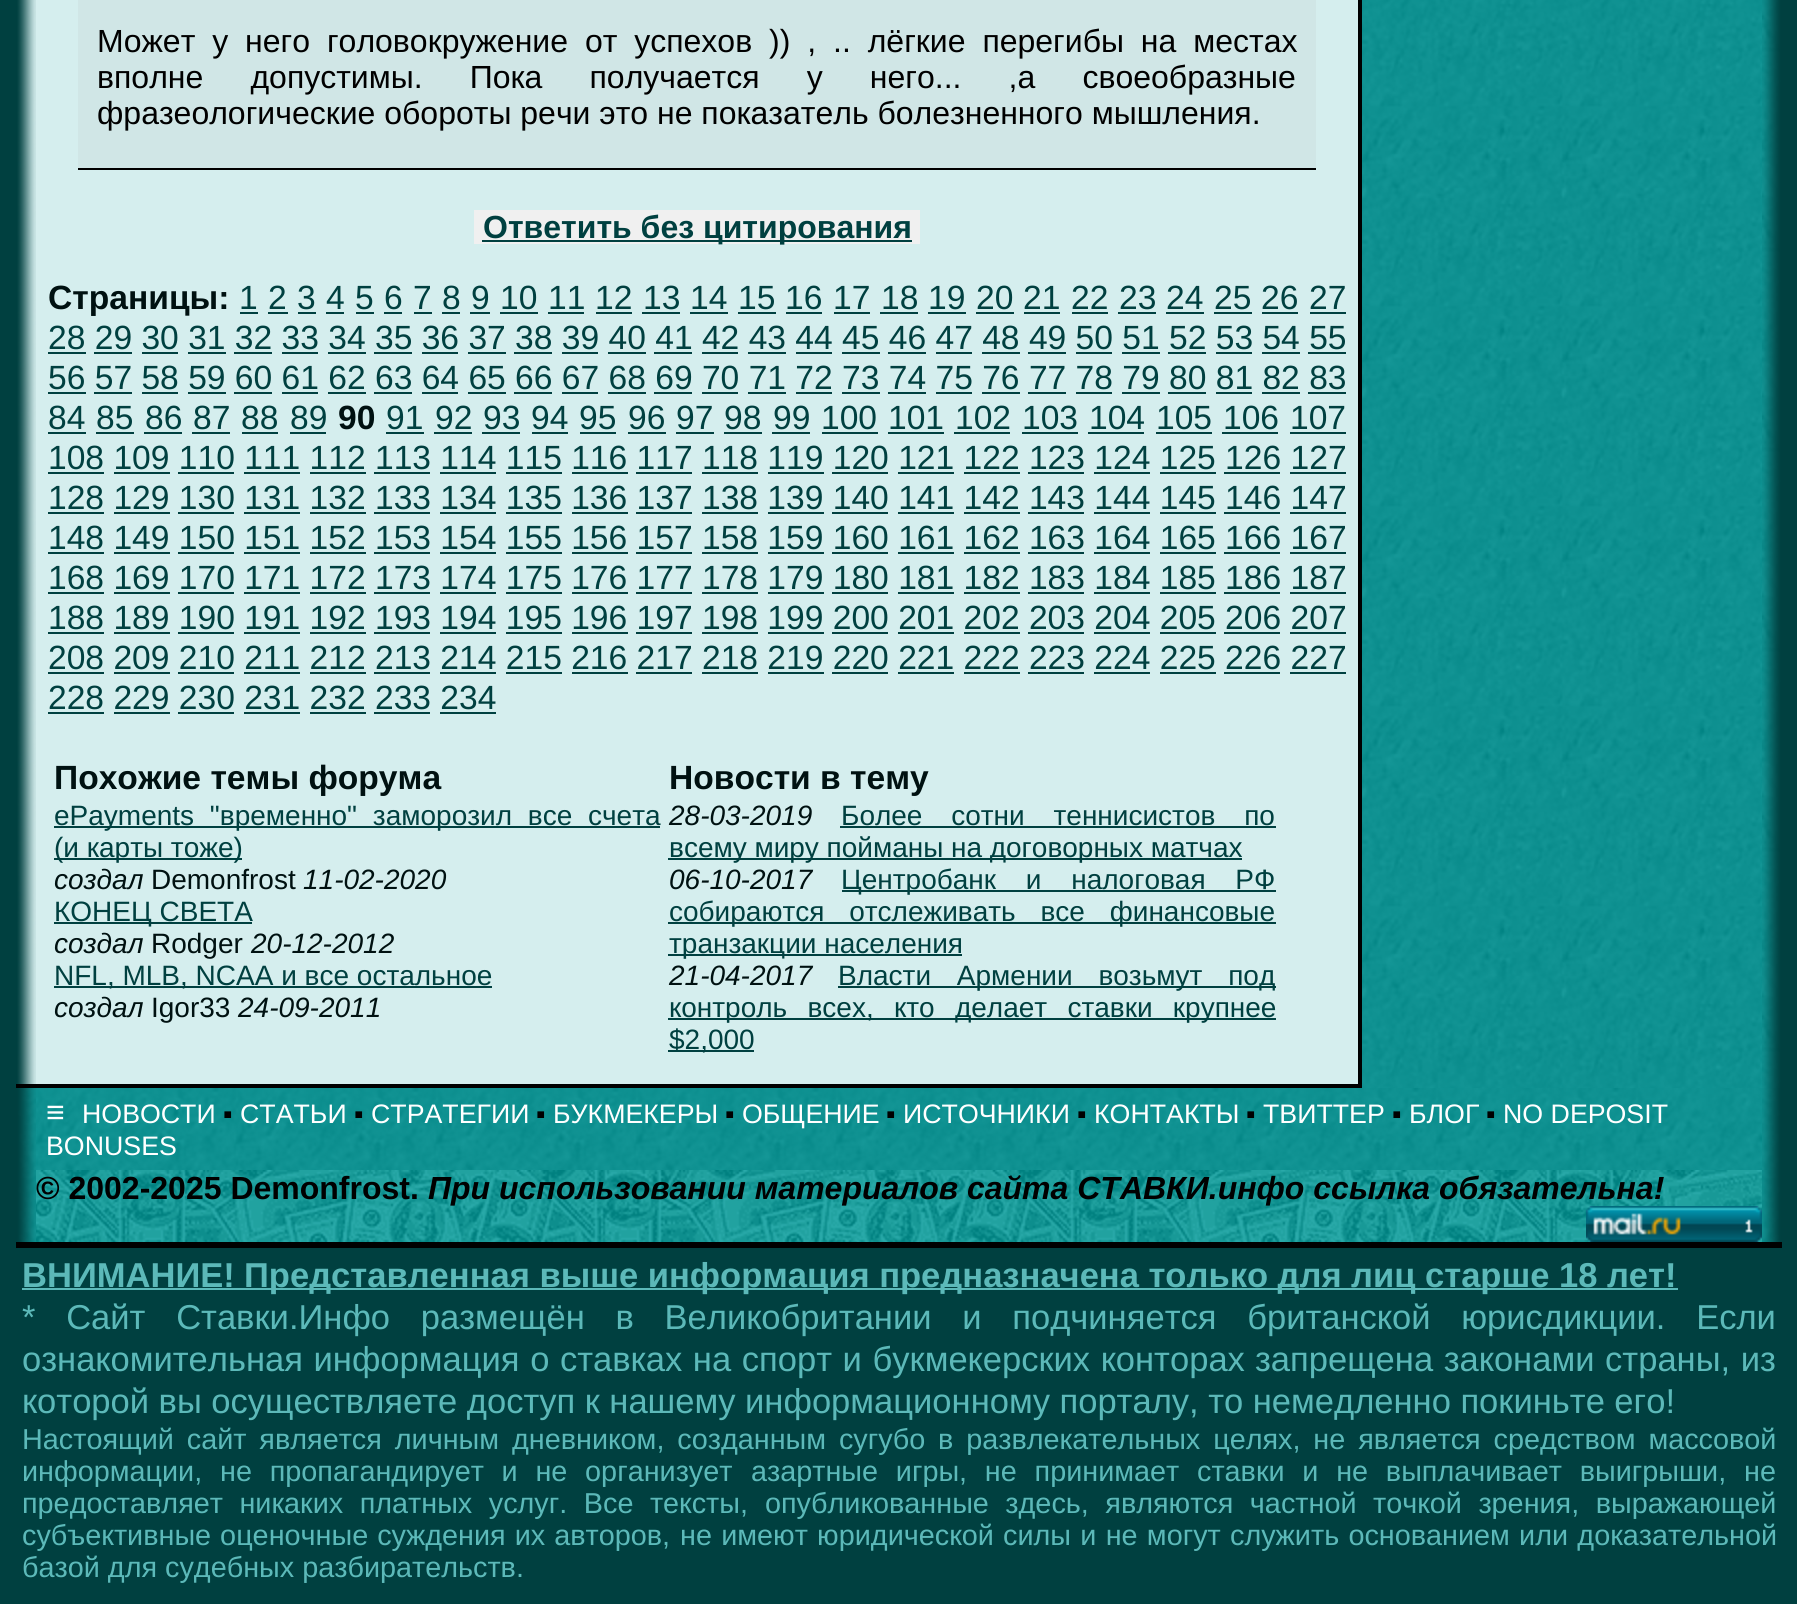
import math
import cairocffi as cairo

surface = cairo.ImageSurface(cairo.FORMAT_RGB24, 1797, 1604)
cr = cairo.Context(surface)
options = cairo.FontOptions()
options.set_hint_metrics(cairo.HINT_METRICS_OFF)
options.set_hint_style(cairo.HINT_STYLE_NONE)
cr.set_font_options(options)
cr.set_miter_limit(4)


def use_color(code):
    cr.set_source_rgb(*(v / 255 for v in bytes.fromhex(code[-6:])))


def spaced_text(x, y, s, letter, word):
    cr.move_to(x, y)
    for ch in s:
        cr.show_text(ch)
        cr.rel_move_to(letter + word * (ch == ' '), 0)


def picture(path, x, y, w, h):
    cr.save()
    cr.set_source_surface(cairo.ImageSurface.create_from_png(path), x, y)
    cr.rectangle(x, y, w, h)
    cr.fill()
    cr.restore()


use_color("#004040")
cr.paint()
use_color("#d5eeee")
cr.rectangle(36, 0, 1322, 1084)
cr.fill()
picture("img1.png", 16, 0, 20, 1084)
use_color("#000000")
cr.rectangle(16, 1084, 1342, 4)
cr.fill()
use_color("#d0e6e6")
cr.rectangle(78, 0, 1238, 168)
cr.fill()
use_color("#000000")
cr.rectangle(78, 168, 1238, 2)
cr.fill()
cr.select_font_face("Liberation Sans")
cr.set_font_size(32)
spaced_text(97, 52, "Может у него головокружение от успехов )) ,", 0, 8)
spaced_text(833, 52, ".. лёгкие перегибы на местах", 0, 8)
spaced_text(97, 88, "вполне допустимы. Пока получается у него... ,а своеобразные", 0, 38.25)
cr.move_to(97, 124)
cr.show_text("фразеологические обороты речи это не показатель болезненного мышления.")
use_color("#f0f0f0")
cr.rectangle(474, 210, 446, 34)
cr.fill()
use_color("#004040")
cr.rectangle(482, 240, 430, 2)
cr.fill()
cr.select_font_face("Liberation Sans", cairo.FONT_SLANT_NORMAL, cairo.FONT_WEIGHT_BOLD)
cr.move_to(483, 238)
cr.show_text("Ответить без цитирования")
cr.set_font_size(33.6)
use_color("#001111")
cr.move_to(48, 309)
cr.show_text("Страницы:")
cr.select_font_face("Liberation Sans")
use_color("#004040")
cr.move_to(239, 309)
cr.show_text("1")
cr.rectangle(240, 312, 18, 2)
cr.fill()
cr.move_to(268, 309)
cr.show_text("2")
cr.rectangle(268, 312, 20, 2)
cr.fill()
cr.move_to(297, 309)
cr.show_text("3")
cr.rectangle(298, 312, 18, 2)
cr.fill()
cr.move_to(326, 309)
cr.show_text("4")
cr.rectangle(326, 312, 18, 2)
cr.fill()
cr.move_to(355, 309)
cr.show_text("5")
cr.rectangle(356, 312, 18, 2)
cr.fill()
cr.move_to(384, 309)
cr.show_text("6")
cr.rectangle(384, 312, 18, 2)
cr.fill()
cr.move_to(413, 309)
cr.show_text("7")
cr.rectangle(414, 312, 18, 2)
cr.fill()
cr.move_to(442, 309)
cr.show_text("8")
cr.rectangle(442, 312, 18, 2)
cr.fill()
cr.move_to(471, 309)
cr.show_text("9")
cr.rectangle(470, 312, 20, 2)
cr.fill()
cr.move_to(500, 309)
cr.show_text("10")
cr.rectangle(500, 312, 38, 2)
cr.fill()
cr.move_to(548, 309)
cr.show_text("11")
cr.rectangle(548, 312, 36, 2)
cr.fill()
cr.move_to(595, 309)
cr.show_text("12")
cr.rectangle(596, 312, 36, 2)
cr.fill()
cr.move_to(643, 309)
cr.show_text("13")
cr.rectangle(642, 312, 38, 2)
cr.fill()
cr.move_to(690, 309)
cr.show_text("14")
cr.rectangle(690, 312, 38, 2)
cr.fill()
cr.move_to(738, 309)
cr.show_text("15")
cr.rectangle(738, 312, 38, 2)
cr.fill()
cr.move_to(785, 309)
cr.show_text("16")
cr.rectangle(786, 312, 36, 2)
cr.fill()
cr.move_to(833, 309)
cr.show_text("17")
cr.rectangle(834, 312, 36, 2)
cr.fill()
cr.move_to(881, 309)
cr.show_text("18")
cr.rectangle(880, 312, 38, 2)
cr.fill()
cr.move_to(928, 309)
cr.show_text("19")
cr.rectangle(928, 312, 38, 2)
cr.fill()
cr.move_to(976, 309)
cr.show_text("20")
cr.rectangle(976, 312, 38, 2)
cr.fill()
cr.move_to(1023, 309)
cr.show_text("21")
cr.rectangle(1024, 312, 36, 2)
cr.fill()
cr.move_to(1071, 309)
cr.show_text("22")
cr.rectangle(1072, 312, 36, 2)
cr.fill()
cr.move_to(1119, 309)
cr.show_text("23")
cr.rectangle(1118, 312, 38, 2)
cr.fill()
cr.move_to(1166, 309)
cr.show_text("24")
cr.rectangle(1166, 312, 38, 2)
cr.fill()
cr.move_to(1214, 309)
cr.show_text("25")
cr.rectangle(1214, 312, 38, 2)
cr.fill()
cr.move_to(1261, 309)
cr.show_text("26")
cr.rectangle(1262, 312, 36, 2)
cr.fill()
cr.move_to(1309, 309)
cr.show_text("27")
cr.rectangle(1310, 312, 36, 2)
cr.fill()
cr.move_to(48, 349)
cr.show_text("28 29 30 31 32 33 34 35 36 37 38 39 40 41 42 43 44 45 46 47 48 49 50 51 52 53 54 55")
cr.rectangle(48, 352, 38, 2)
cr.fill()
cr.rectangle(94, 352, 38, 2)
cr.fill()
cr.rectangle(142, 352, 36, 2)
cr.fill()
cr.rectangle(188, 352, 38, 2)
cr.fill()
cr.rectangle(234, 352, 38, 2)
cr.fill()
cr.rectangle(282, 352, 36, 2)
cr.fill()
cr.rectangle(328, 352, 38, 2)
cr.fill()
cr.rectangle(374, 352, 38, 2)
cr.fill()
cr.rectangle(422, 352, 36, 2)
cr.fill()
cr.rectangle(468, 352, 38, 2)
cr.fill()
cr.rectangle(514, 352, 38, 2)
cr.fill()
cr.rectangle(562, 352, 36, 2)
cr.fill()
cr.rectangle(608, 352, 38, 2)
cr.fill()
cr.rectangle(654, 352, 38, 2)
cr.fill()
cr.rectangle(702, 352, 36, 2)
cr.fill()
cr.rectangle(748, 352, 38, 2)
cr.fill()
cr.rectangle(796, 352, 36, 2)
cr.fill()
cr.rectangle(842, 352, 38, 2)
cr.fill()
cr.rectangle(888, 352, 38, 2)
cr.fill()
cr.rectangle(936, 352, 36, 2)
cr.fill()
cr.rectangle(982, 352, 38, 2)
cr.fill()
cr.rectangle(1028, 352, 38, 2)
cr.fill()
cr.rectangle(1076, 352, 36, 2)
cr.fill()
cr.rectangle(1122, 352, 38, 2)
cr.fill()
cr.rectangle(1168, 352, 38, 2)
cr.fill()
cr.rectangle(1216, 352, 36, 2)
cr.fill()
cr.rectangle(1262, 352, 38, 2)
cr.fill()
cr.rectangle(1308, 352, 38, 2)
cr.fill()
cr.move_to(48, 389)
cr.show_text("56 57 58 59 60 61 62 63 64 65 66 67 68 69 70 71 72 73 74 75 76 77 78 79 80 81 82 83")
cr.rectangle(48, 392, 38, 2)
cr.fill()
cr.rectangle(94, 392, 38, 2)
cr.fill()
cr.rectangle(142, 392, 36, 2)
cr.fill()
cr.rectangle(188, 392, 38, 2)
cr.fill()
cr.rectangle(234, 392, 38, 2)
cr.fill()
cr.rectangle(282, 392, 36, 2)
cr.fill()
cr.rectangle(328, 392, 38, 2)
cr.fill()
cr.rectangle(374, 392, 38, 2)
cr.fill()
cr.rectangle(422, 392, 36, 2)
cr.fill()
cr.rectangle(468, 392, 38, 2)
cr.fill()
cr.rectangle(514, 392, 38, 2)
cr.fill()
cr.rectangle(562, 392, 36, 2)
cr.fill()
cr.rectangle(608, 392, 38, 2)
cr.fill()
cr.rectangle(654, 392, 38, 2)
cr.fill()
cr.rectangle(702, 392, 36, 2)
cr.fill()
cr.rectangle(748, 392, 38, 2)
cr.fill()
cr.rectangle(796, 392, 36, 2)
cr.fill()
cr.rectangle(842, 392, 38, 2)
cr.fill()
cr.rectangle(888, 392, 38, 2)
cr.fill()
cr.rectangle(936, 392, 36, 2)
cr.fill()
cr.rectangle(982, 392, 38, 2)
cr.fill()
cr.rectangle(1028, 392, 38, 2)
cr.fill()
cr.rectangle(1076, 392, 36, 2)
cr.fill()
cr.rectangle(1122, 392, 38, 2)
cr.fill()
cr.rectangle(1168, 392, 38, 2)
cr.fill()
cr.rectangle(1216, 392, 36, 2)
cr.fill()
cr.rectangle(1262, 392, 38, 2)
cr.fill()
cr.rectangle(1308, 392, 38, 2)
cr.fill()
cr.move_to(48, 429)
cr.show_text("84")
cr.rectangle(48, 432, 38, 2)
cr.fill()
cr.move_to(96, 429)
cr.show_text("85")
cr.rectangle(96, 432, 38, 2)
cr.fill()
cr.move_to(145, 429)
cr.show_text("86")
cr.rectangle(144, 432, 38, 2)
cr.fill()
cr.move_to(193, 429)
cr.show_text("87")
cr.rectangle(192, 432, 38, 2)
cr.fill()
cr.move_to(241, 429)
cr.show_text("88")
cr.rectangle(242, 432, 36, 2)
cr.fill()
cr.move_to(290, 429)
cr.show_text("89")
cr.rectangle(290, 432, 36, 2)
cr.fill()
cr.select_font_face("Liberation Sans", cairo.FONT_SLANT_NORMAL, cairo.FONT_WEIGHT_BOLD)
use_color("#001111")
cr.move_to(338, 429)
cr.show_text("90")
cr.select_font_face("Liberation Sans")
use_color("#004040")
cr.move_to(386, 429)
cr.show_text("91")
cr.rectangle(386, 432, 38, 2)
cr.fill()
cr.move_to(435, 429)
cr.show_text("92")
cr.rectangle(434, 432, 38, 2)
cr.fill()
cr.move_to(483, 429)
cr.show_text("93")
cr.rectangle(482, 432, 38, 2)
cr.fill()
cr.move_to(531, 429)
cr.show_text("94")
cr.rectangle(532, 432, 36, 2)
cr.fill()
cr.move_to(579, 429)
cr.show_text("95")
cr.rectangle(580, 432, 36, 2)
cr.fill()
cr.move_to(628, 429)
cr.show_text("96")
cr.rectangle(628, 432, 38, 2)
cr.fill()
cr.move_to(676, 429)
cr.show_text("97")
cr.rectangle(676, 432, 38, 2)
cr.fill()
cr.move_to(724, 429)
cr.show_text("98")
cr.rectangle(724, 432, 38, 2)
cr.fill()
cr.move_to(773, 429)
cr.show_text("99")
cr.rectangle(772, 432, 38, 2)
cr.fill()
cr.move_to(821, 429)
cr.show_text("100")
cr.rectangle(822, 432, 56, 2)
cr.fill()
cr.move_to(888, 429)
cr.show_text("101")
cr.rectangle(888, 432, 56, 2)
cr.fill()
cr.move_to(955, 429)
cr.show_text("102")
cr.rectangle(954, 432, 56, 2)
cr.fill()
cr.move_to(1022, 429)
cr.show_text("103")
cr.rectangle(1022, 432, 56, 2)
cr.fill()
cr.move_to(1089, 429)
cr.show_text("104")
cr.rectangle(1088, 432, 56, 2)
cr.fill()
cr.move_to(1156, 429)
cr.show_text("105")
cr.rectangle(1156, 432, 56, 2)
cr.fill()
cr.move_to(1223, 429)
cr.show_text("106")
cr.rectangle(1222, 432, 56, 2)
cr.fill()
cr.move_to(1290, 429)
cr.show_text("107")
cr.rectangle(1290, 432, 56, 2)
cr.fill()
cr.move_to(48, 469)
cr.show_text("108 109 110 111 112 113 114 115 116 117 118 119 120 121 122 123 124 125 126 127")
cr.rectangle(48, 472, 56, 2)
cr.fill()
cr.rectangle(114, 472, 56, 2)
cr.fill()
cr.rectangle(178, 472, 56, 2)
cr.fill()
cr.rectangle(244, 472, 56, 2)
cr.fill()
cr.rectangle(310, 472, 56, 2)
cr.fill()
cr.rectangle(374, 472, 56, 2)
cr.fill()
cr.rectangle(440, 472, 56, 2)
cr.fill()
cr.rectangle(506, 472, 56, 2)
cr.fill()
cr.rectangle(572, 472, 56, 2)
cr.fill()
cr.rectangle(636, 472, 56, 2)
cr.fill()
cr.rectangle(702, 472, 56, 2)
cr.fill()
cr.rectangle(768, 472, 56, 2)
cr.fill()
cr.rectangle(832, 472, 56, 2)
cr.fill()
cr.rectangle(898, 472, 56, 2)
cr.fill()
cr.rectangle(964, 472, 56, 2)
cr.fill()
cr.rectangle(1028, 472, 56, 2)
cr.fill()
cr.rectangle(1094, 472, 56, 2)
cr.fill()
cr.rectangle(1160, 472, 56, 2)
cr.fill()
cr.rectangle(1224, 472, 56, 2)
cr.fill()
cr.rectangle(1290, 472, 56, 2)
cr.fill()
cr.move_to(48, 509)
cr.show_text("128 129 130 131 132 133 134 135 136 137 138 139 140 141 142 143 144 145 146 147")
cr.rectangle(48, 512, 56, 2)
cr.fill()
cr.rectangle(114, 512, 56, 2)
cr.fill()
cr.rectangle(178, 512, 56, 2)
cr.fill()
cr.rectangle(244, 512, 56, 2)
cr.fill()
cr.rectangle(310, 512, 56, 2)
cr.fill()
cr.rectangle(374, 512, 56, 2)
cr.fill()
cr.rectangle(440, 512, 56, 2)
cr.fill()
cr.rectangle(506, 512, 56, 2)
cr.fill()
cr.rectangle(572, 512, 56, 2)
cr.fill()
cr.rectangle(636, 512, 56, 2)
cr.fill()
cr.rectangle(702, 512, 56, 2)
cr.fill()
cr.rectangle(768, 512, 56, 2)
cr.fill()
cr.rectangle(832, 512, 56, 2)
cr.fill()
cr.rectangle(898, 512, 56, 2)
cr.fill()
cr.rectangle(964, 512, 56, 2)
cr.fill()
cr.rectangle(1028, 512, 56, 2)
cr.fill()
cr.rectangle(1094, 512, 56, 2)
cr.fill()
cr.rectangle(1160, 512, 56, 2)
cr.fill()
cr.rectangle(1224, 512, 56, 2)
cr.fill()
cr.rectangle(1290, 512, 56, 2)
cr.fill()
cr.move_to(48, 549)
cr.show_text("148 149 150 151 152 153 154 155 156 157 158 159 160 161 162 163 164 165 166 167")
cr.rectangle(48, 552, 56, 2)
cr.fill()
cr.rectangle(114, 552, 56, 2)
cr.fill()
cr.rectangle(178, 552, 56, 2)
cr.fill()
cr.rectangle(244, 552, 56, 2)
cr.fill()
cr.rectangle(310, 552, 56, 2)
cr.fill()
cr.rectangle(374, 552, 56, 2)
cr.fill()
cr.rectangle(440, 552, 56, 2)
cr.fill()
cr.rectangle(506, 552, 56, 2)
cr.fill()
cr.rectangle(572, 552, 56, 2)
cr.fill()
cr.rectangle(636, 552, 56, 2)
cr.fill()
cr.rectangle(702, 552, 56, 2)
cr.fill()
cr.rectangle(768, 552, 56, 2)
cr.fill()
cr.rectangle(832, 552, 56, 2)
cr.fill()
cr.rectangle(898, 552, 56, 2)
cr.fill()
cr.rectangle(964, 552, 56, 2)
cr.fill()
cr.rectangle(1028, 552, 56, 2)
cr.fill()
cr.rectangle(1094, 552, 56, 2)
cr.fill()
cr.rectangle(1160, 552, 56, 2)
cr.fill()
cr.rectangle(1224, 552, 56, 2)
cr.fill()
cr.rectangle(1290, 552, 56, 2)
cr.fill()
cr.move_to(48, 589)
cr.show_text("168 169 170 171 172 173 174 175 176 177 178 179 180 181 182 183 184 185 186 187")
cr.rectangle(48, 592, 56, 2)
cr.fill()
cr.rectangle(114, 592, 56, 2)
cr.fill()
cr.rectangle(178, 592, 56, 2)
cr.fill()
cr.rectangle(244, 592, 56, 2)
cr.fill()
cr.rectangle(310, 592, 56, 2)
cr.fill()
cr.rectangle(374, 592, 56, 2)
cr.fill()
cr.rectangle(440, 592, 56, 2)
cr.fill()
cr.rectangle(506, 592, 56, 2)
cr.fill()
cr.rectangle(572, 592, 56, 2)
cr.fill()
cr.rectangle(636, 592, 56, 2)
cr.fill()
cr.rectangle(702, 592, 56, 2)
cr.fill()
cr.rectangle(768, 592, 56, 2)
cr.fill()
cr.rectangle(832, 592, 56, 2)
cr.fill()
cr.rectangle(898, 592, 56, 2)
cr.fill()
cr.rectangle(964, 592, 56, 2)
cr.fill()
cr.rectangle(1028, 592, 56, 2)
cr.fill()
cr.rectangle(1094, 592, 56, 2)
cr.fill()
cr.rectangle(1160, 592, 56, 2)
cr.fill()
cr.rectangle(1224, 592, 56, 2)
cr.fill()
cr.rectangle(1290, 592, 56, 2)
cr.fill()
cr.move_to(48, 629)
cr.show_text("188 189 190 191 192 193 194 195 196 197 198 199 200 201 202 203 204 205 206 207")
cr.rectangle(48, 632, 56, 2)
cr.fill()
cr.rectangle(114, 632, 56, 2)
cr.fill()
cr.rectangle(178, 632, 56, 2)
cr.fill()
cr.rectangle(244, 632, 56, 2)
cr.fill()
cr.rectangle(310, 632, 56, 2)
cr.fill()
cr.rectangle(374, 632, 56, 2)
cr.fill()
cr.rectangle(440, 632, 56, 2)
cr.fill()
cr.rectangle(506, 632, 56, 2)
cr.fill()
cr.rectangle(572, 632, 56, 2)
cr.fill()
cr.rectangle(636, 632, 56, 2)
cr.fill()
cr.rectangle(702, 632, 56, 2)
cr.fill()
cr.rectangle(768, 632, 56, 2)
cr.fill()
cr.rectangle(832, 632, 56, 2)
cr.fill()
cr.rectangle(898, 632, 56, 2)
cr.fill()
cr.rectangle(964, 632, 56, 2)
cr.fill()
cr.rectangle(1028, 632, 56, 2)
cr.fill()
cr.rectangle(1094, 632, 56, 2)
cr.fill()
cr.rectangle(1160, 632, 56, 2)
cr.fill()
cr.rectangle(1224, 632, 56, 2)
cr.fill()
cr.rectangle(1290, 632, 56, 2)
cr.fill()
cr.move_to(48, 669)
cr.show_text("208 209 210 211 212 213 214 215 216 217 218 219 220 221 222 223 224 225 226 227")
cr.rectangle(48, 672, 56, 2)
cr.fill()
cr.rectangle(114, 672, 56, 2)
cr.fill()
cr.rectangle(178, 672, 56, 2)
cr.fill()
cr.rectangle(244, 672, 56, 2)
cr.fill()
cr.rectangle(310, 672, 56, 2)
cr.fill()
cr.rectangle(374, 672, 56, 2)
cr.fill()
cr.rectangle(440, 672, 56, 2)
cr.fill()
cr.rectangle(506, 672, 56, 2)
cr.fill()
cr.rectangle(572, 672, 56, 2)
cr.fill()
cr.rectangle(636, 672, 56, 2)
cr.fill()
cr.rectangle(702, 672, 56, 2)
cr.fill()
cr.rectangle(768, 672, 56, 2)
cr.fill()
cr.rectangle(832, 672, 56, 2)
cr.fill()
cr.rectangle(898, 672, 56, 2)
cr.fill()
cr.rectangle(964, 672, 56, 2)
cr.fill()
cr.rectangle(1028, 672, 56, 2)
cr.fill()
cr.rectangle(1094, 672, 56, 2)
cr.fill()
cr.rectangle(1160, 672, 56, 2)
cr.fill()
cr.rectangle(1224, 672, 56, 2)
cr.fill()
cr.rectangle(1290, 672, 56, 2)
cr.fill()
cr.move_to(48, 709)
cr.show_text("228 229 230 231 232 233 234")
cr.rectangle(48, 712, 56, 2)
cr.fill()
cr.rectangle(114, 712, 56, 2)
cr.fill()
cr.rectangle(178, 712, 56, 2)
cr.fill()
cr.rectangle(244, 712, 56, 2)
cr.fill()
cr.rectangle(310, 712, 56, 2)
cr.fill()
cr.rectangle(374, 712, 56, 2)
cr.fill()
cr.rectangle(440, 712, 56, 2)
cr.fill()
cr.select_font_face("Liberation Sans", cairo.FONT_SLANT_NORMAL, cairo.FONT_WEIGHT_BOLD)
use_color("#001111")
cr.move_to(54, 789)
cr.show_text("Похожие темы форума")
use_color("#004040")
cr.rectangle(54, 826, 606, 2)
cr.fill()
cr.select_font_face("Liberation Sans")
cr.set_font_size(28)
spaced_text(54, 825, "ePayments \"временно\" заморозил все счета", 0, 8)
cr.rectangle(54, 858, 188, 2)
cr.fill()
cr.move_to(54, 857)
cr.show_text("(и карты тоже)")
cr.select_font_face("Liberation Sans", cairo.FONT_SLANT_ITALIC)
use_color("#001111")
cr.move_to(54, 889)
cr.show_text("создал")
cr.select_font_face("Liberation Sans")
cr.move_to(151, 889)
cr.show_text("Demonfrost")
cr.select_font_face("Liberation Sans", cairo.FONT_SLANT_ITALIC)
cr.move_to(303, 889)
cr.show_text("11-02-2020")
use_color("#004040")
cr.rectangle(54, 922, 198, 2)
cr.fill()
cr.select_font_face("Liberation Sans")
cr.move_to(54, 921)
cr.show_text("КОНЕЦ СВЕТА")
cr.select_font_face("Liberation Sans", cairo.FONT_SLANT_ITALIC)
use_color("#001111")
cr.move_to(54, 953)
cr.show_text("создал")
cr.select_font_face("Liberation Sans")
cr.move_to(151, 953)
cr.show_text("Rodger")
cr.select_font_face("Liberation Sans", cairo.FONT_SLANT_ITALIC)
cr.move_to(251, 953)
cr.show_text("20-12-2012")
use_color("#004040")
cr.rectangle(54, 986, 438, 2)
cr.fill()
cr.select_font_face("Liberation Sans")
cr.move_to(54, 985)
cr.show_text("NFL, MLB, NCAA и все остальное")
cr.select_font_face("Liberation Sans", cairo.FONT_SLANT_ITALIC)
use_color("#001111")
cr.move_to(54, 1017)
cr.show_text("создал")
cr.select_font_face("Liberation Sans")
cr.move_to(151, 1017)
cr.show_text("Igor33")
cr.select_font_face("Liberation Sans", cairo.FONT_SLANT_ITALIC)
cr.move_to(238, 1017)
cr.show_text("24-09-2011")
cr.select_font_face("Liberation Sans", cairo.FONT_SLANT_NORMAL, cairo.FONT_WEIGHT_BOLD)
cr.set_font_size(33.6)
cr.move_to(669, 789)
cr.show_text("Новости в тему")
cr.select_font_face("Liberation Sans", cairo.FONT_SLANT_ITALIC)
cr.set_font_size(28)
cr.move_to(669, 825)
cr.show_text("28-03-2019")
cr.select_font_face("Liberation Sans")
use_color("#004040")
spaced_text(841, 825, "Более сотни теннисистов по", 0, 21)
cr.rectangle(840, 826, 436, 2)
cr.fill()
cr.rectangle(668, 858, 574, 2)
cr.fill()
spaced_text(669, 857, "всему миру пойманы на договорных матчах", 0, -0.1)
cr.select_font_face("Liberation Sans", cairo.FONT_SLANT_ITALIC)
use_color("#001111")
cr.move_to(669, 889)
cr.show_text("06-10-2017")
use_color("#004040")
cr.rectangle(842, 890, 434, 2)
cr.fill()
cr.select_font_face("Liberation Sans")
spaced_text(841, 889, "Центробанк и налоговая РФ", 0, 22)
cr.rectangle(668, 922, 608, 2)
cr.fill()
spaced_text(669, 921, "собираются отслеживать все финансовые", 0, 17)
cr.rectangle(668, 954, 294, 2)
cr.fill()
cr.move_to(669, 953)
cr.show_text("транзакции населения")
cr.select_font_face("Liberation Sans", cairo.FONT_SLANT_ITALIC)
use_color("#001111")
cr.move_to(669, 985)
cr.show_text("21-04-2017")
use_color("#004040")
cr.rectangle(838, 986, 438, 2)
cr.fill()
cr.select_font_face("Liberation Sans")
spaced_text(838, 985, "Власти Армении возьмут под", 0, 18)
cr.rectangle(668, 1018, 608, 2)
cr.fill()
spaced_text(669, 1017, "контроль всех, кто делает ставки крупнее", 0, 12.5)
cr.rectangle(668, 1050, 86, 2)
cr.fill()
cr.move_to(669, 1049)
cr.show_text("$2,000")
picture("img2.png", 1362, 0, 400, 1088)
use_color("#000000")
cr.rectangle(1358, 0, 4, 1088)
cr.fill()
picture("img3.png", 1762, 0, 20, 1088)
picture("img4.png", 16, 1088, 20, 82)
picture("img5.png", 36, 1088, 1726, 82)
cr.set_font_size(32)
use_color("#ffffff")
cr.move_to(46, 1123)
cr.show_text("≡")
cr.set_font_size(26.75)
cr.move_to(82, 1123)
cr.show_text("НОВОСТИ")
use_color("#000000")
cr.move_to(223, 1123)
cr.show_text("▪")
use_color("#ffffff")
cr.move_to(240, 1123)
cr.show_text("СТАТЬИ")
use_color("#000000")
cr.move_to(354, 1123)
cr.show_text("▪")
use_color("#ffffff")
cr.move_to(371, 1123)
cr.show_text("СТРАТЕГИИ")
use_color("#000000")
cr.move_to(536, 1123)
cr.show_text("▪")
use_color("#ffffff")
cr.move_to(553, 1123)
cr.show_text("БУКМЕКЕРЫ")
use_color("#000000")
cr.move_to(725, 1123)
cr.show_text("▪")
use_color("#ffffff")
cr.move_to(742, 1123)
cr.show_text("ОБЩЕНИЕ")
use_color("#000000")
cr.move_to(886, 1123)
cr.show_text("▪")
use_color("#ffffff")
cr.move_to(903, 1123)
cr.show_text("ИСТОЧНИКИ")
use_color("#000000")
cr.move_to(1077, 1123)
cr.show_text("▪")
use_color("#ffffff")
cr.move_to(1094, 1123)
cr.show_text("КОНТАКТЫ")
use_color("#000000")
cr.move_to(1246, 1123)
cr.show_text("▪")
use_color("#ffffff")
cr.move_to(1263, 1123)
cr.show_text("ТВИТТЕР")
use_color("#000000")
cr.move_to(1392, 1123)
cr.show_text("▪")
use_color("#ffffff")
cr.move_to(1409, 1123)
cr.show_text("БЛОГ")
use_color("#000000")
cr.move_to(1486, 1123)
cr.show_text("▪")
use_color("#ffffff")
cr.move_to(1503, 1123)
cr.show_text("NO DEPOSIT")
cr.move_to(46, 1155)
cr.show_text("BONUSES")
picture("img6.png", 1762, 1088, 20, 82)
picture("img7.png", 16, 1170, 20, 72)
use_color("#000000")
cr.rectangle(16, 1242, 1766, 6)
cr.fill()
picture("img8.png", 36, 1170, 1726, 72)
cr.select_font_face("Liberation Sans", cairo.FONT_SLANT_NORMAL, cairo.FONT_WEIGHT_BOLD)
cr.set_font_size(32)
cr.move_to(36, 1199)
cr.show_text("© 2002-2025 Demonfrost.")
cr.select_font_face("Liberation Sans", cairo.FONT_SLANT_ITALIC, cairo.FONT_WEIGHT_BOLD)
cr.move_to(428, 1199)
cr.show_text("При использовании материалов сайта СТАВКИ.инфо ссылка обязательна!")
picture("img9.png", 1586, 1206, 176, 36)
picture("img10.png", 1762, 1170, 20, 72)
cr.select_font_face("Liberation Sans", cairo.FONT_SLANT_NORMAL, cairo.FONT_WEIGHT_BOLD)
cr.set_font_size(34.55)
use_color("#5cb9b9")
cr.move_to(22, 1287)
cr.show_text("ВНИМАНИЕ!")
cr.rectangle(22, 1288, 1656, 2)
cr.fill()
spaced_text(244, 1287, "Представленная выше информация предназначена только для лиц старше 18 лет!", 0, -0.1)
cr.select_font_face("Liberation Sans")
spaced_text(22, 1329, "* Сайт Ставки.Инфо размещён в Великобритании и подчиняется британской юрисдикции. Если", 0, 21.1)
spaced_text(22, 1371, "ознакомительная информация о ставках на спорт и букмекерских конторах", 0, 1)
spaced_text(1255, 1371, "запрещена законами страны, из", 0, 1)
spaced_text(22, 1413, "которой вы осуществляете доступ к нашему информационному порталу, то немедленно покиньте его!", 0, -0.1)
cr.set_font_size(28.8)
spaced_text(22, 1449, "Настоящий сайт является личным дневником, созданным сугубо в развлекательных целях, не является средством массовой", 0, 4.9)
cr.move_to(22, 1481)
cr.show_text("информации,")
spaced_text(220, 1481, "не пропагандирует и не организует", 0, 9.75)
spaced_text(751, 1481, "азартные игры, не принимает ставки и не выплачивает выигрыши,", 0, 9.75)
cr.move_to(1744, 1481)
cr.show_text("не")
spaced_text(22, 1513, "предоставляет никаких платных услуг. Все тексты,", 0, 8.5)
spaced_text(765, 1513, "опубликованные здесь, являются частной точкой зрения, выражающей", 0, 8.5)
spaced_text(22, 1545, "субъективные оценочные суждения их авторов,", 0, 1)
spaced_text(680, 1545, "не имеют юридической силы и не могут служить основанием или доказательной", 0, 1.25)
cr.move_to(22, 1577)
cr.show_text("базой для судебных разбирательств.")
surface.write_to_png("result.png")
